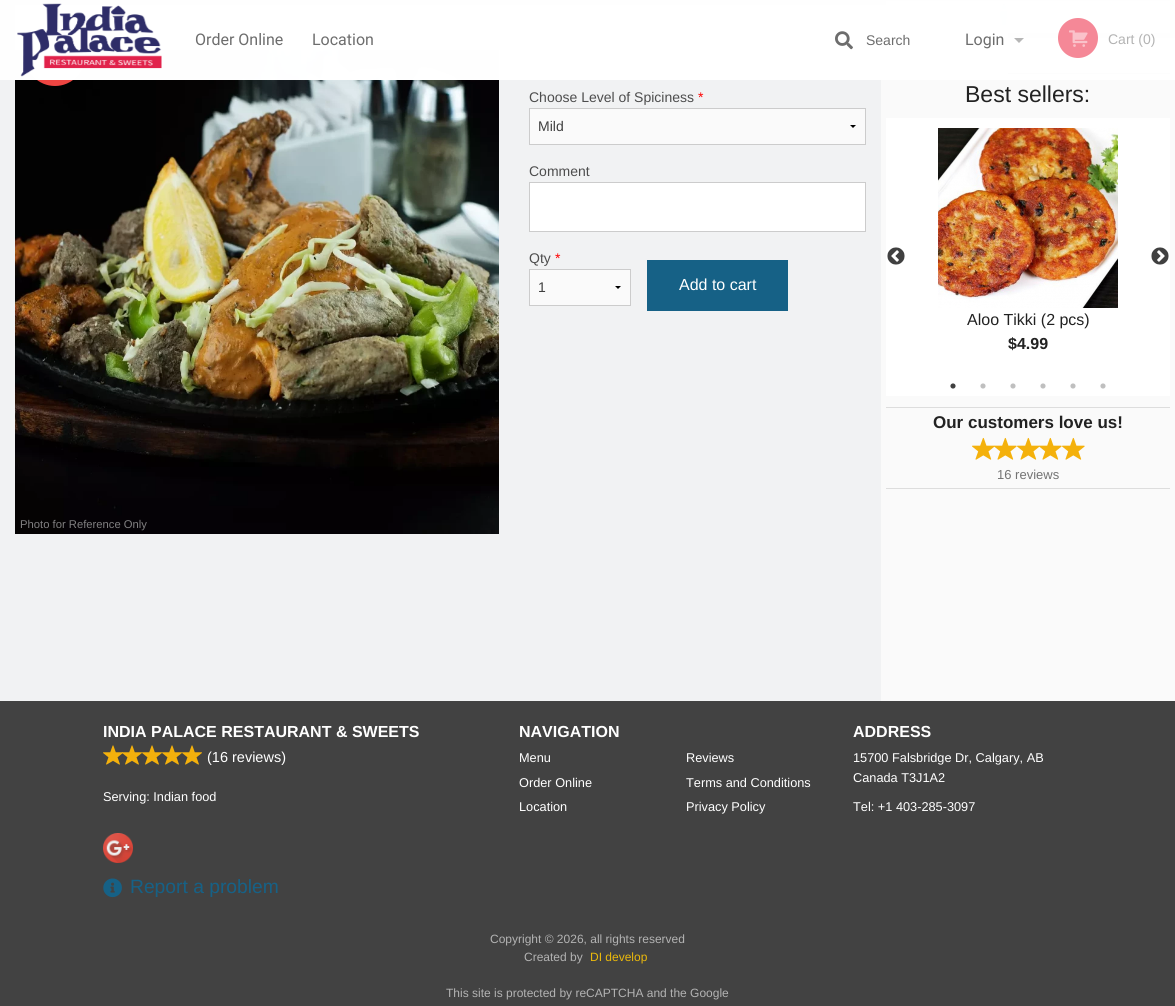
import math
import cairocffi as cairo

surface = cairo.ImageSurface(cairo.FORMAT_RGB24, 1175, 1006)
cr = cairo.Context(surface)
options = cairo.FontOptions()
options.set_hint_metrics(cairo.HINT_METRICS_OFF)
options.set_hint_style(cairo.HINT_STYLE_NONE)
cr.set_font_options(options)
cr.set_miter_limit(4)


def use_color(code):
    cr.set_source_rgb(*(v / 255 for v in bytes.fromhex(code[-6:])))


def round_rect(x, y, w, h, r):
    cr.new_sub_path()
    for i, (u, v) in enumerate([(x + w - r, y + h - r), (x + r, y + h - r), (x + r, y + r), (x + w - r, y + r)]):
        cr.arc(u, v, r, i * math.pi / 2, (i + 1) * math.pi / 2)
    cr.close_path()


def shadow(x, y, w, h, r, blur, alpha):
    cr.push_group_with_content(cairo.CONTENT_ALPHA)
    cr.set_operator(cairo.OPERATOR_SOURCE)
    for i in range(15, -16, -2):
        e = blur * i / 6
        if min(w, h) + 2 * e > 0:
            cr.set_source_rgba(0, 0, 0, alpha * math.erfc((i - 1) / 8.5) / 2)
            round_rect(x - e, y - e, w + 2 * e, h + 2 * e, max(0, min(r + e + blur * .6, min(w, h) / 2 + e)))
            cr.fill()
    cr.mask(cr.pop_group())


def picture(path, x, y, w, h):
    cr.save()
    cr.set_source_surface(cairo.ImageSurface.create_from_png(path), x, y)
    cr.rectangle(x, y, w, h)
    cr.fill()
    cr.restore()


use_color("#f1f2f3")
cr.paint()
picture("img5.png", 15, 50, 484, 484)
use_color("#000000")
shadow(25, 27, 62, 62, 31, 1, 0.2)
use_color("#ee4542")
cr.arc(55, 56, 30, 0, 2 * math.pi)
cr.fill()
picture("img4.png", 36, 40, 39, 32)
use_color("#fafafa")
cr.rectangle(881, 38, 294, 663)
cr.fill()
use_color("#e1e1e1")
cr.rectangle(881, 0, 294, 38)
cr.fill()
use_color("#ffffff")
cr.rectangle(886, 1, 284, 32)
cr.fill()
picture("img6.png", 1000, 4, 8, 22)
use_color("#dddddd")
cr.rectangle(886, 73, 284, 1)
cr.fill()
cr.set_source_rgba(1, 1, 1, 0.95)
cr.rectangle(0, 0, 1175, 80)
cr.fill()
cr.rectangle(15, 5, 993, 75)
cr.fill()
picture("img1.png", 17, 3, 145, 74)
cr.select_font_face("Roboto")
cr.set_font_size(16)
use_color("#6d6d6d")
cr.move_to(195, 45)
cr.show_text("Order Online")
cr.move_to(312, 45)
cr.show_text("Location")
picture("img2.png", 835, 31, 18, 19)
cr.select_font_face("Liberation Sans")
cr.set_font_size(14)
cr.move_to(866, 45)
cr.show_text("Search")
cr.select_font_face("Roboto")
cr.set_font_size(16)
cr.move_to(965, 45)
cr.show_text("Login")
use_color("#b6b6b6")
cr.new_path()
cr.move_to(1014, 38)
cr.line_to(1024, 38)
cr.line_to(1019, 43)
cr.close_path()
cr.fill()
use_color("#f58897")
cr.arc(1078, 38, 20, 0, 2 * math.pi)
cr.fill()
picture("img3.png", 1069, 30, 19, 17)
cr.select_font_face("Liberation Sans")
cr.set_font_size(14)
use_color("#b3b3b3")
cr.move_to(1108, 44)
cr.show_text("Cart (0)")
use_color("#4d4d4d")
cr.move_to(529, 102)
cr.show_text("Choose Level of Spiciness")
use_color("#ff0000")
cr.move_to(698, 102)
cr.show_text("*")
use_color("#fafafa")
cr.rectangle(530, 109, 335, 35)
cr.fill()
use_color("#000000")
cr.new_path()
cr.move_to(856, 125)
cr.line_to(853, 128)
cr.line_to(850, 125)
cr.close_path()
cr.fill()
cr.rectangle(529.5, 108.5, 336, 36)
use_color("#cccccc")
cr.set_line_width(1)
cr.stroke()
use_color("#3f3f3f")
cr.move_to(538, 131)
cr.show_text("Mild")
use_color("#4d4d4d")
cr.move_to(529, 176)
cr.show_text("Comment")
use_color("#ffffff")
cr.rectangle(529.5, 182.5, 336, 49)
cr.fill_preserve()
use_color("#cccccc")
cr.stroke()
use_color("#4d4d4d")
cr.move_to(529, 263)
cr.show_text("Qty")
use_color("#ff0000")
cr.move_to(555, 263)
cr.show_text("*")
use_color("#fafafa")
cr.rectangle(530, 270, 100, 35)
cr.fill()
use_color("#000000")
cr.new_path()
cr.move_to(621, 286)
cr.line_to(618, 289)
cr.line_to(615, 286)
cr.close_path()
cr.fill()
cr.rectangle(529.5, 269.5, 101, 36)
use_color("#cccccc")
cr.stroke()
use_color("#3f3f3f")
cr.move_to(538, 292)
cr.show_text("1")
use_color("#166186")
cr.rectangle(647, 260, 141, 51)
cr.fill()
cr.set_font_size(16)
use_color("#ffffff")
cr.move_to(679, 290)
cr.show_text("Add to cart")
cr.set_font_size(11.25)
use_color("#818081")
cr.move_to(20, 528)
cr.show_text("Photo for Reference Only")
cr.set_font_size(23)
use_color("#222222")
cr.move_to(965, 102)
cr.show_text("Best sellers:")
use_color("#ffffff")
cr.rectangle(886, 118, 284, 278)
cr.fill()
picture("img7.png", 887, 247, 18, 18)
picture("img8.png", 1151, 247, 18, 18)
picture("img9.png", 938, 128, 180, 180)
cr.set_font_size(16)
use_color("#222222")
cr.move_to(967, 325)
cr.show_text("Aloo Tikki (2 pcs)")
cr.select_font_face("Liberation Sans", cairo.FONT_SLANT_NORMAL, cairo.FONT_WEIGHT_BOLD)
cr.move_to(1008, 349)
cr.show_text("$4.99")
picture("img10.png", 950, 383, 6, 6)
picture("img11.png", 980, 383, 6, 6)
picture("img11.png", 1010, 383, 6, 6)
picture("img11.png", 1040, 383, 6, 6)
picture("img11.png", 1070, 383, 6, 6)
picture("img11.png", 1100, 383, 6, 6)
use_color("#dddddd")
cr.rectangle(886, 407, 284, 1)
cr.fill()
cr.set_font_size(17)
use_color("#222222")
cr.move_to(933, 428)
cr.show_text("Our customers love us!")
picture("img12.png", 972, 437, 23, 23)
picture("img13.png", 994, 437, 23, 23)
picture("img12.png", 1017, 437, 23, 23)
picture("img13.png", 1039, 437, 23, 23)
picture("img12.png", 1062, 437, 23, 23)
cr.select_font_face("Liberation Sans")
cr.set_font_size(13)
use_color("#737373")
cr.move_to(997, 479)
cr.show_text("16 reviews")
use_color("#dddddd")
cr.rectangle(886, 488, 284, 1)
cr.fill()
use_color("#424242")
cr.rectangle(0, 701, 1175, 305)
cr.fill()
cr.select_font_face("Liberation Sans", cairo.FONT_SLANT_NORMAL, cairo.FONT_WEIGHT_BOLD)
cr.set_font_size(16)
use_color("#ffffff")
cr.move_to(103, 737)
cr.show_text("INDIA PALACE RESTAURANT & SWEETS")
picture("img14.png", 103, 745, 20, 20)
picture("img15.png", 122, 745, 20, 20)
picture("img14.png", 142, 745, 20, 20)
picture("img14.png", 162, 745, 20, 20)
picture("img14.png", 182, 745, 20, 20)
cr.select_font_face("Liberation Sans")
cr.set_font_size(14.5)
cr.move_to(207, 762)
cr.show_text("(16 reviews)")
cr.set_font_size(12.75)
cr.move_to(103, 801)
cr.show_text("Serving: Indian food")
picture("img16.png", 103, 833, 30, 30)
picture("img17.png", 103, 878, 19, 20)
cr.set_font_size(19.25)
use_color("#166186")
cr.move_to(130, 893)
cr.show_text("Report a problem")
cr.select_font_face("Liberation Sans", cairo.FONT_SLANT_NORMAL, cairo.FONT_WEIGHT_BOLD)
cr.set_font_size(16)
use_color("#ffffff")
cr.move_to(519, 737)
cr.show_text("NAVIGATION")
cr.select_font_face("Liberation Sans")
cr.set_font_size(12.75)
cr.move_to(519, 762)
cr.show_text("Menu")
cr.move_to(519, 787)
cr.show_text("Order Online")
cr.move_to(519, 811)
cr.show_text("Location")
cr.move_to(686, 762)
cr.show_text("Reviews")
cr.move_to(686, 787)
cr.show_text("Terms and Conditions")
cr.move_to(686, 811)
cr.show_text("Privacy Policy")
cr.select_font_face("Liberation Sans", cairo.FONT_SLANT_NORMAL, cairo.FONT_WEIGHT_BOLD)
cr.set_font_size(16)
cr.move_to(853, 737)
cr.show_text("ADDRESS")
cr.select_font_face("Liberation Sans")
cr.set_font_size(12.75)
cr.move_to(853, 762)
cr.show_text("15700 Falsbridge Dr, Calgary, AB")
cr.move_to(853, 782)
cr.show_text("Canada T3J1A2")
cr.move_to(853, 811)
cr.show_text("Tel: +1 403-285-3097")
cr.set_font_size(12)
use_color("#b3b3b3")
cr.move_to(490, 943)
cr.show_text("Copyright © 2026, all rights reserved")
cr.move_to(524, 961)
cr.show_text("Created by")
use_color("#ebb90b")
cr.move_to(590, 961)
cr.show_text("DI develop")
use_color("#b3b3b3")
cr.move_to(446, 997)
cr.show_text("This site is protected by reCAPTCHA and the Google")
surface.write_to_png("result.png")
